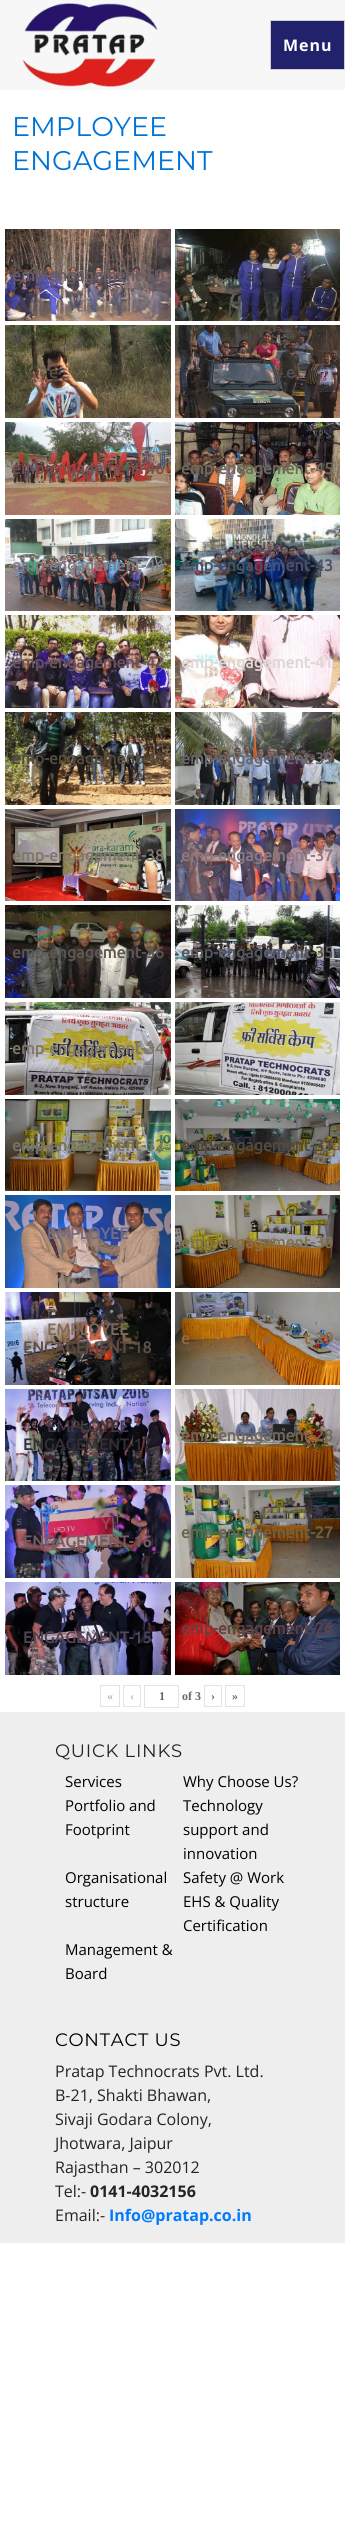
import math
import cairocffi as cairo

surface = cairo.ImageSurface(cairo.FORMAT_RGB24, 345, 2537)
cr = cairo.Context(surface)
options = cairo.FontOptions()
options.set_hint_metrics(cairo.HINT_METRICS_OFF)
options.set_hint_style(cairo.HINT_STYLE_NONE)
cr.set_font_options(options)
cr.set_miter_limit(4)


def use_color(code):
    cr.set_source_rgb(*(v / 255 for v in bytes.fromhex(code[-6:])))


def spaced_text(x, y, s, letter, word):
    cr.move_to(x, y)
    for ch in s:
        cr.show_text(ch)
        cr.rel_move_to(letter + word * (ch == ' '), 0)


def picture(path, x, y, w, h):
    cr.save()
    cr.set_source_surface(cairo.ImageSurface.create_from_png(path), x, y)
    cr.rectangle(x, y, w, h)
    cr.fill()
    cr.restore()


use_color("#ffffff")
cr.paint()
use_color("#f7f7f7")
cr.rectangle(0, 0, 345, 90)
cr.fill()
picture("img1.png", 22, 3, 136, 84)
use_color("#22226c")
cr.rectangle(270.5, 20.5, 74, 49)
cr.fill_preserve()
use_color("#d1d1d1")
cr.set_line_width(1)
cr.stroke()
cr.select_font_face("Open Sans", cairo.FONT_SLANT_NORMAL, cairo.FONT_WEIGHT_BOLD)
cr.set_font_size(16)
use_color("#ffffff")
spaced_text(283, 51, "Menu", 1, 0)
cr.select_font_face("Montserrat")
cr.set_font_size(27)
use_color("#0073d8")
cr.move_to(12, 136)
cr.show_text("EMPLOYEE")
cr.move_to(12, 170)
cr.show_text("ENGAGEMENT")
picture("img2.png", 5, 229, 166, 92)
cr.select_font_face("Ubuntu", cairo.FONT_SLANT_NORMAL, cairo.FONT_WEIGHT_BOLD)
cr.set_font_size(16)
use_color("#6a5c64")
cr.move_to(12, 281)
cr.show_text("emp-engagement-50")
picture("img3.png", 175, 229, 165, 92)
use_color("#3a3a4c")
cr.move_to(246, 281)
cr.show_text("a")
cr.move_to(286, 281)
cr.show_text("e")
picture("img4.png", 5, 325, 166, 93)
use_color("#584e3b")
cr.move_to(49, 378)
cr.show_text("e")
picture("img5.png", 175, 325, 165, 93)
use_color("#515056")
cr.move_to(213, 378)
cr.show_text("-")
cr.move_to(286, 378)
cr.show_text("e")
picture("img6.png", 5, 422, 166, 93)
use_color("#7b4e4a")
cr.move_to(12, 474)
cr.show_text("emp-engagement-46")
picture("img7.png", 175, 422, 165, 93)
use_color("#70695a")
cr.move_to(181, 474)
cr.show_text("emp-engagement-45")
picture("img8.png", 5, 519, 166, 92)
use_color("#7d7d83")
cr.move_to(12, 571)
cr.show_text("emp-engagement-44")
picture("img9.png", 175, 519, 165, 92)
use_color("#4a5067")
cr.move_to(181, 571)
cr.show_text("emp-engagement-43")
picture("img10.png", 5, 615, 166, 93)
use_color("#68525b")
cr.move_to(12, 668)
cr.show_text("emp-engagement-42")
picture("img11.png", 175, 615, 165, 93)
use_color("#dfd5d5")
cr.move_to(181, 668)
cr.show_text("emp-engagement-41")
picture("img12.png", 5, 712, 166, 93)
use_color("#514a3d")
cr.move_to(12, 764)
cr.show_text("emp-engagement-40")
picture("img13.png", 175, 712, 165, 93)
use_color("#69676e")
cr.move_to(181, 764)
cr.show_text("emp-engagement-39")
picture("img14.png", 5, 809, 166, 92)
use_color("#7e786b")
cr.move_to(12, 861)
cr.show_text("emp-engagement-38")
picture("img15.png", 175, 809, 165, 92)
use_color("#8d7881")
cr.move_to(181, 861)
cr.show_text("emp-engagement-37")
picture("img16.png", 5, 905, 166, 93)
use_color("#5c5753")
cr.move_to(12, 958)
cr.show_text("emp-engagement-36")
picture("img17.png", 175, 905, 165, 93)
use_color("#56565d")
cr.move_to(181, 958)
cr.show_text("emp-engagement-35")
picture("img18.png", 5, 1002, 166, 93)
use_color("#7e786b")
cr.move_to(12, 1054)
cr.show_text("emp-engagement-34")
picture("img19.png", 175, 1002, 165, 93)
use_color("#cac7a0")
cr.move_to(324, 1054)
cr.show_text("3")
picture("img20.png", 5, 1099, 166, 92)
use_color("#76745b")
cr.move_to(12, 1151)
cr.show_text("emp-engagement-32")
picture("img21.png", 175, 1099, 165, 92)
use_color("#514a3d")
cr.move_to(181, 1151)
cr.show_text("emp-engagement-31")
picture("img22.png", 5, 1195, 166, 93)
use_color("#746c86")
cr.move_to(47, 1239)
cr.show_text("EMPLOYEE")
picture("img23.png", 175, 1195, 165, 93)
use_color("#84714d")
cr.move_to(181, 1248)
cr.show_text("emp-engagement-30")
picture("img24.png", 5, 1292, 166, 93)
use_color("#7e695d")
cr.move_to(47, 1335)
cr.show_text("EMPLOYEE")
use_color("#5f4d47")
cr.move_to(23, 1353)
cr.show_text("ENGAGEMENT-18")
picture("img25.png", 175, 1292, 165, 93)
use_color("#90693d")
cr.move_to(181, 1344)
cr.show_text("e")
cr.move_to(263, 1344)
cr.show_text("e")
cr.move_to(304, 1344)
cr.show_text("t-29")
picture("img26.png", 5, 1389, 166, 92)
use_color("#443645")
cr.move_to(47, 1432)
cr.show_text("EMPLOYEE")
use_color("#312f34")
cr.move_to(23, 1450)
cr.show_text("ENGAGEMENT-17")
picture("img27.png", 175, 1389, 165, 92)
use_color("#70695a")
cr.move_to(181, 1441)
cr.show_text("emp-engagement-28")
picture("img28.png", 5, 1485, 166, 93)
use_color("#a63c5f")
cr.move_to(101, 1529)
cr.show_text("Y")
use_color("#785c65")
cr.move_to(23, 1547)
cr.show_text("ENGAGEMENT-16")
picture("img29.png", 175, 1485, 165, 93)
use_color("#6c6442")
cr.move_to(181, 1538)
cr.show_text("emp-engagement-27")
picture("img30.png", 5, 1582, 166, 93)
use_color("#514654")
cr.move_to(23, 1643)
cr.show_text("ENGAGEMENT-15")
picture("img31.png", 175, 1582, 165, 93)
use_color("#623f44")
cr.move_to(181, 1634)
cr.show_text("emp-engagement-26")
cr.rectangle(100.5, 1685.5, 19, 21)
use_color("#e3e3e3")
cr.stroke()
cr.select_font_face("Liberation Serif", cairo.FONT_SLANT_NORMAL, cairo.FONT_WEIGHT_BOLD)
cr.set_font_size(12)
use_color("#b3b3b3")
cr.move_to(107, 1700)
cr.show_text("«")
cr.rectangle(123.5, 1685.5, 17, 21)
use_color("#e3e3e3")
cr.stroke()
use_color("#b3b3b3")
cr.move_to(130, 1700)
cr.show_text("‹")
cr.rectangle(144.5, 1685.5, 34, 22)
use_color("#e3e3e3")
cr.stroke()
use_color("#666666")
cr.move_to(159, 1700)
cr.show_text("1")
cr.move_to(182, 1700)
cr.show_text("of 3")
cr.rectangle(204.5, 1685.5, 17, 21)
use_color("#e3e3e3")
cr.stroke()
use_color("#666666")
cr.move_to(211, 1700)
cr.show_text("›")
cr.rectangle(225.5, 1685.5, 19, 21)
use_color("#e3e3e3")
cr.stroke()
use_color("#666666")
cr.move_to(232, 1700)
cr.show_text("»")
use_color("#eeeeee")
cr.rectangle(0, 1712, 345, 531)
cr.fill()
cr.select_font_face("Montserrat")
cr.set_font_size(18)
use_color("#212529")
spaced_text(55, 1757, "QUICK LINKS", 0.75, 0)
cr.select_font_face("Open Sans")
cr.set_font_size(15)
use_color("#000000")
cr.move_to(65, 1787)
cr.show_text("Services")
cr.move_to(183, 1787)
cr.show_text("Why Choose Us?")
cr.move_to(65, 1811)
cr.show_text("Portfolio and")
cr.move_to(65, 1835)
cr.show_text("Footprint")
cr.move_to(183, 1811)
cr.show_text("Technology")
cr.move_to(183, 1835)
cr.show_text("support and")
cr.move_to(183, 1859)
cr.show_text("innovation")
cr.move_to(65, 1883)
cr.show_text("Organisational")
cr.move_to(65, 1907)
cr.show_text("structure")
cr.move_to(183, 1883)
cr.show_text("Safety @ Work")
cr.move_to(183, 1907)
cr.show_text("EHS & Quality")
cr.move_to(183, 1931)
cr.show_text("Certification")
cr.move_to(65, 1955)
cr.show_text("Management &")
cr.move_to(65, 1979)
cr.show_text("Board")
cr.select_font_face("Montserrat")
cr.set_font_size(18)
spaced_text(55, 2046, "CONTACT US", 0.75, 0)
cr.select_font_face("Open Sans")
cr.set_font_size(16)
use_color("#212529")
cr.move_to(55, 2077)
cr.show_text("Pratap Technocrats Pvt. Ltd.")
cr.move_to(55, 2101)
cr.show_text("B-21, Shakti Bhawan,")
cr.move_to(55, 2125)
cr.show_text("Sivaji Godara Colony,")
cr.move_to(55, 2149)
cr.show_text("Jhotwara, Jaipur")
cr.move_to(55, 2173)
cr.show_text("Rajasthan – 302012")
cr.move_to(55, 2197)
cr.show_text("Tel:-")
cr.select_font_face("Open Sans", cairo.FONT_SLANT_NORMAL, cairo.FONT_WEIGHT_BOLD)
cr.move_to(90, 2197)
cr.show_text("0141-4032156")
cr.select_font_face("Open Sans")
cr.move_to(55, 2221)
cr.show_text("Email:-")
cr.select_font_face("Open Sans", cairo.FONT_SLANT_NORMAL, cairo.FONT_WEIGHT_BOLD)
use_color("#007bff")
cr.move_to(109, 2221)
cr.show_text("Info@pratap.co.in")
surface.write_to_png("result.png")
